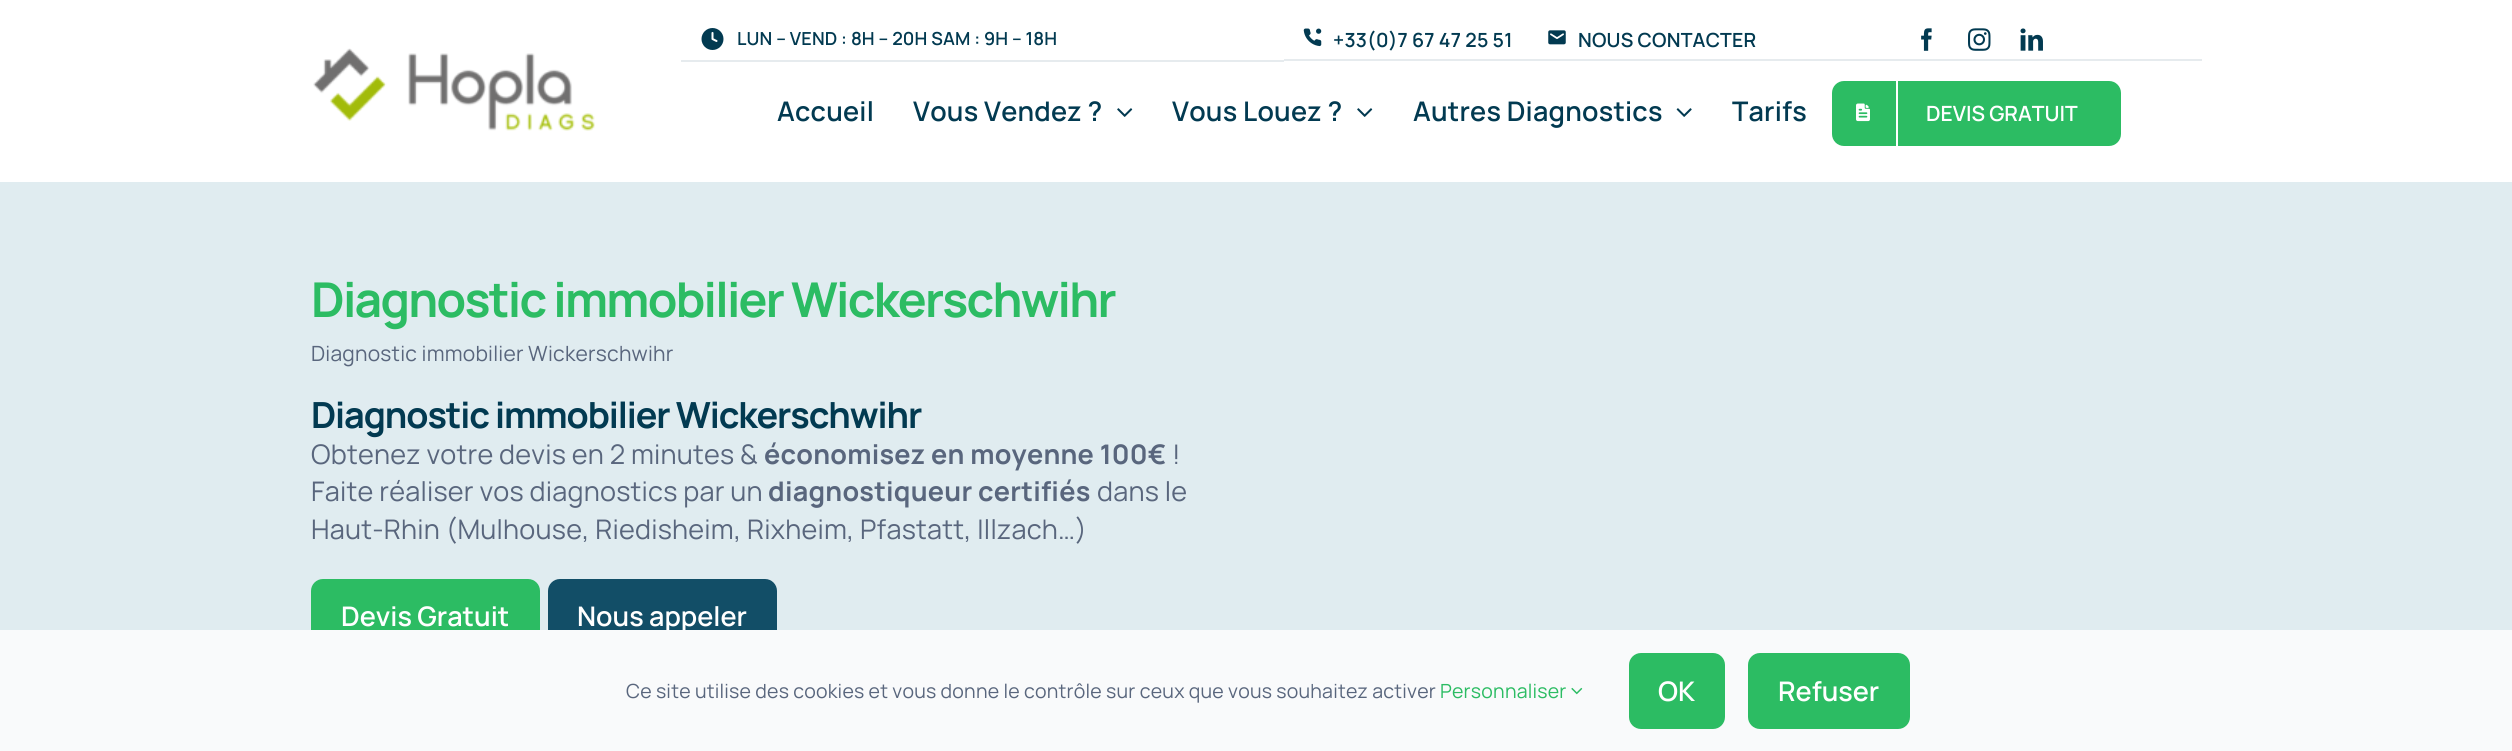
import math
import cairocffi as cairo

surface = cairo.ImageSurface(cairo.FORMAT_RGB24, 2512, 751)
cr = cairo.Context(surface)
options = cairo.FontOptions()
options.set_hint_metrics(cairo.HINT_METRICS_OFF)
options.set_hint_style(cairo.HINT_STYLE_NONE)
cr.set_font_options(options)
cr.set_miter_limit(4)


def use_color(code):
    cr.set_source_rgb(*(v / 255 for v in bytes.fromhex(code[-6:])))


def spaced_text(x, y, s, letter, word):
    cr.move_to(x, y)
    for ch in s:
        cr.show_text(ch)
        cr.rel_move_to(letter + word * (ch == ' '), 0)


def round_rect(x, y, w, h, r):
    cr.new_sub_path()
    for i, (u, v) in enumerate([(x + w - r, y + h - r), (x + r, y + h - r), (x + r, y + r), (x + w - r, y + r)]):
        cr.arc(u, v, r, i * math.pi / 2, (i + 1) * math.pi / 2)
    cr.close_path()


def picture(path, x, y, w, h):
    cr.save()
    cr.set_source_surface(cairo.ImageSurface.create_from_png(path), x, y)
    cr.rectangle(x, y, w, h)
    cr.fill()
    cr.restore()


use_color("#e0ecf0")
cr.paint()
use_color("#ffffff")
cr.rectangle(0, 0, 2512, 182)
cr.fill()
picture("img1.png", 313, 48, 282, 83)
use_color("#e6ebee")
cr.rectangle(681, 60, 603, 2)
cr.fill()
picture("img2.png", 701, 28, 23, 22)
cr.select_font_face("Manrope SemiBold")
cr.set_font_size(18)
use_color("#023a51")
spaced_text(737, 45, "LUN – VEND : 8H – 20H SAM : 9H – 18H", 0.15, 0)
use_color("#e6ebee")
cr.rectangle(1284, 59, 918, 2)
cr.fill()
picture("img3.png", 1303, 28, 19, 19)
cr.set_font_size(19.5)
use_color("#023a51")
spaced_text(1333, 47, "+33(0)7 67 47 25 51", 0.2, 0)
picture("img4.png", 1548, 30, 18, 15)
spaced_text(1578, 47, "NOUS CONTACTER", 0.2, 0)
picture("img5.png", 1921, 28, 11, 23)
picture("img6.png", 1968, 28, 23, 23)
picture("img7.png", 2020, 28, 23, 23)
cr.set_font_size(27)
spaced_text(777, 121, "Accueil", 0.22, 0)
spaced_text(913, 121, "Vous Vendez ?", 0.22, 0)
picture("img8.png", 1117, 108, 16, 9)
spaced_text(1172, 121, "Vous Louez ?", 0.22, 0)
picture("img8.png", 1357, 108, 16, 9)
spaced_text(1413, 121, "Autres Diagnostics", 0.22, 0)
picture("img9.png", 1676, 108, 16, 9)
spaced_text(1732, 121, "Tarifs", 0.22, 0)
use_color("#2cbc63")
round_rect(1832, 81, 289, 65, 12)
cr.fill()
use_color("#ffffff")
cr.rectangle(1896, 81, 2, 65)
cr.fill()
picture("img10.png", 1856, 103, 14, 19)
cr.set_font_size(21)
cr.move_to(1926, 121)
cr.show_text("DEVIS GRATUIT")
cr.select_font_face("Manrope", cairo.FONT_SLANT_NORMAL, cairo.FONT_WEIGHT_BOLD)
cr.set_font_size(48)
use_color("#2cbc63")
spaced_text(311, 317, "Diagnostic immobilier Wickerschwihr", -1.75, 0)
cr.select_font_face("Manrope")
cr.set_font_size(21)
use_color("#59667d")
spaced_text(311, 361, "Diagnostic immobilier Wickerschwihr", 0.22, 0)
cr.select_font_face("Manrope", cairo.FONT_SLANT_NORMAL, cairo.FONT_WEIGHT_BOLD)
cr.set_font_size(36)
use_color("#023a51")
spaced_text(311, 428, "Diagnostic immobilier Wickerschwihr", -1.1, 0)
cr.select_font_face("Manrope")
cr.set_font_size(27)
use_color("#59667d")
spaced_text(311, 464, "Obtenez votre devis en 2 minutes &", 0.22, 0)
cr.select_font_face("Manrope", cairo.FONT_SLANT_NORMAL, cairo.FONT_WEIGHT_BOLD)
spaced_text(764, 464, "économisez en moyenne 100€", 0.22, 0)
cr.select_font_face("Manrope")
spaced_text(1172, 464, "!", 0.22, 0)
spaced_text(311, 501, "Faite réaliser vos diagnostics par un", 0.22, 0)
cr.select_font_face("Manrope", cairo.FONT_SLANT_NORMAL, cairo.FONT_WEIGHT_BOLD)
spaced_text(768, 501, "diagnostiqueur certifiés", 0.22, 0)
cr.select_font_face("Manrope")
spaced_text(1097, 501, "dans le", 0.22, 0)
spaced_text(311, 539, "Haut-Rhin (Mulhouse, Riedisheim, Rixheim, Pfastatt, Illzach…)", 0.22, 0)
use_color("#2cbc63")
round_rect(311, 579, 229, 77, 12)
cr.fill()
cr.select_font_face("Manrope SemiBold")
use_color("#ffffff")
cr.move_to(341, 626)
cr.show_text("Devis Gratuit")
use_color("#124e67")
round_rect(548, 579, 229, 77, 12)
cr.fill()
use_color("#ffffff")
cr.move_to(577, 626)
cr.show_text("Nous appeler")
use_color("#f9fafb")
cr.rectangle(0, 630, 2512, 121)
cr.fill()
cr.select_font_face("Manrope")
cr.set_font_size(19.5)
use_color("#59667d")
spaced_text(626, 698, "Ce site utilise des cookies et vous donne le contrôle sur ceux que vous souhaitez activer", 0.22, 0)
use_color("#2cbc63")
spaced_text(1440, 698, "Personnaliser", 0.22, 0)
picture("img11.png", 1571, 687, 12, 8)
round_rect(1629, 653, 96, 76, 12)
cr.fill()
cr.select_font_face("Manrope SemiBold")
cr.set_font_size(27)
use_color("#ffffff")
cr.move_to(1658, 701)
cr.show_text("OK")
use_color("#2cbc63")
round_rect(1748, 653, 162, 76, 12)
cr.fill()
use_color("#ffffff")
cr.move_to(1778, 701)
cr.show_text("Refuser")
surface.write_to_png("result.png")
